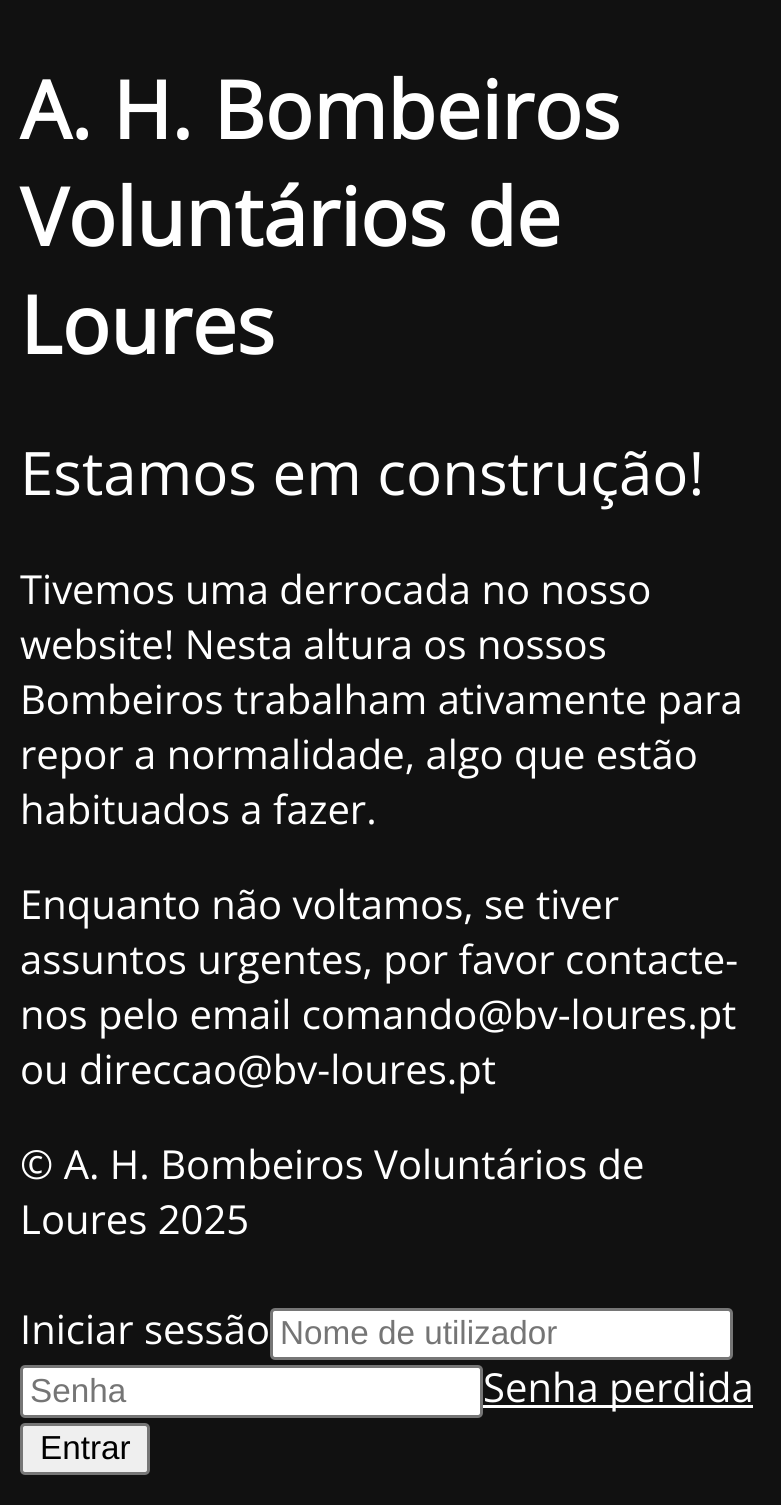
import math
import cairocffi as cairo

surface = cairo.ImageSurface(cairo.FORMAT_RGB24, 781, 1505)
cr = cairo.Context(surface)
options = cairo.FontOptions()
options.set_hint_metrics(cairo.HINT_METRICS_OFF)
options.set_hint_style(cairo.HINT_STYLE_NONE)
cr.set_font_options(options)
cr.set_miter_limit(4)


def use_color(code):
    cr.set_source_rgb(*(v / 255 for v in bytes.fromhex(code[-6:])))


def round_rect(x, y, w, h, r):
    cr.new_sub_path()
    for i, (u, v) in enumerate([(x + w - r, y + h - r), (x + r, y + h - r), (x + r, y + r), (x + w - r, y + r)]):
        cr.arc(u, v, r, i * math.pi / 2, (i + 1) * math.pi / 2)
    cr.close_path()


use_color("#111111")
cr.paint()
cr.select_font_face("Open Sans", cairo.FONT_SLANT_NORMAL, cairo.FONT_WEIGHT_BOLD)
cr.set_font_size(80)
use_color("#ffffff")
cr.move_to(20, 139)
cr.show_text("A. H. Bombeiros")
cr.move_to(20, 246)
cr.show_text("Voluntários de")
cr.move_to(20, 354)
cr.show_text("Loures")
cr.select_font_face("Open Sans")
cr.set_font_size(60)
cr.move_to(20, 495)
cr.show_text("Estamos em construção!")
cr.set_font_size(40)
cr.move_to(20, 604)
cr.show_text("Tivemos uma derrocada no nosso")
cr.move_to(20, 659)
cr.show_text("website! Nesta altura os nossos")
cr.move_to(20, 714)
cr.show_text("Bombeiros trabalham ativamente para")
cr.move_to(20, 769)
cr.show_text("repor a normalidade, algo que estão")
cr.move_to(20, 824)
cr.show_text("habituados a fazer.")
cr.move_to(20, 919)
cr.show_text("Enquanto não voltamos, se tiver")
cr.move_to(20, 974)
cr.show_text("assuntos urgentes, por favor contacte-")
cr.move_to(20, 1029)
cr.show_text("nos pelo email comando@bv-loures.pt")
cr.move_to(20, 1084)
cr.show_text("ou direccao@bv-loures.pt")
cr.move_to(20, 1179)
cr.show_text("© A. H. Bombeiros Voluntários de")
cr.move_to(20, 1234)
cr.show_text("Loures 2025")
cr.move_to(20, 1344)
cr.show_text("Iniciar sessão")
round_rect(271.5, 1309.5, 460, 49, 3.5)
cr.fill_preserve()
use_color("#767676")
cr.set_line_width(3)
cr.stroke()
cr.select_font_face("Liberation Sans")
cr.set_font_size(33.25)
use_color("#757575")
cr.move_to(280, 1344)
cr.show_text("Nome de utilizador")
use_color("#ffffff")
round_rect(21.5, 1366.5, 460, 50, 3.5)
cr.fill_preserve()
use_color("#767676")
cr.stroke()
use_color("#757575")
cr.move_to(30, 1402)
cr.show_text("Senha")
use_color("#ffffff")
cr.rectangle(483, 1405, 270, 3)
cr.fill()
cr.select_font_face("Open Sans")
cr.set_font_size(40)
cr.move_to(483, 1402)
cr.show_text("Senha perdida")
use_color("#efefef")
round_rect(21.5, 1424.5, 127, 49, 3.5)
cr.fill_preserve()
use_color("#767676")
cr.stroke()
cr.select_font_face("Liberation Sans")
cr.set_font_size(33.25)
use_color("#000000")
cr.move_to(40, 1459)
cr.show_text("Entrar")
surface.write_to_png("result.png")
